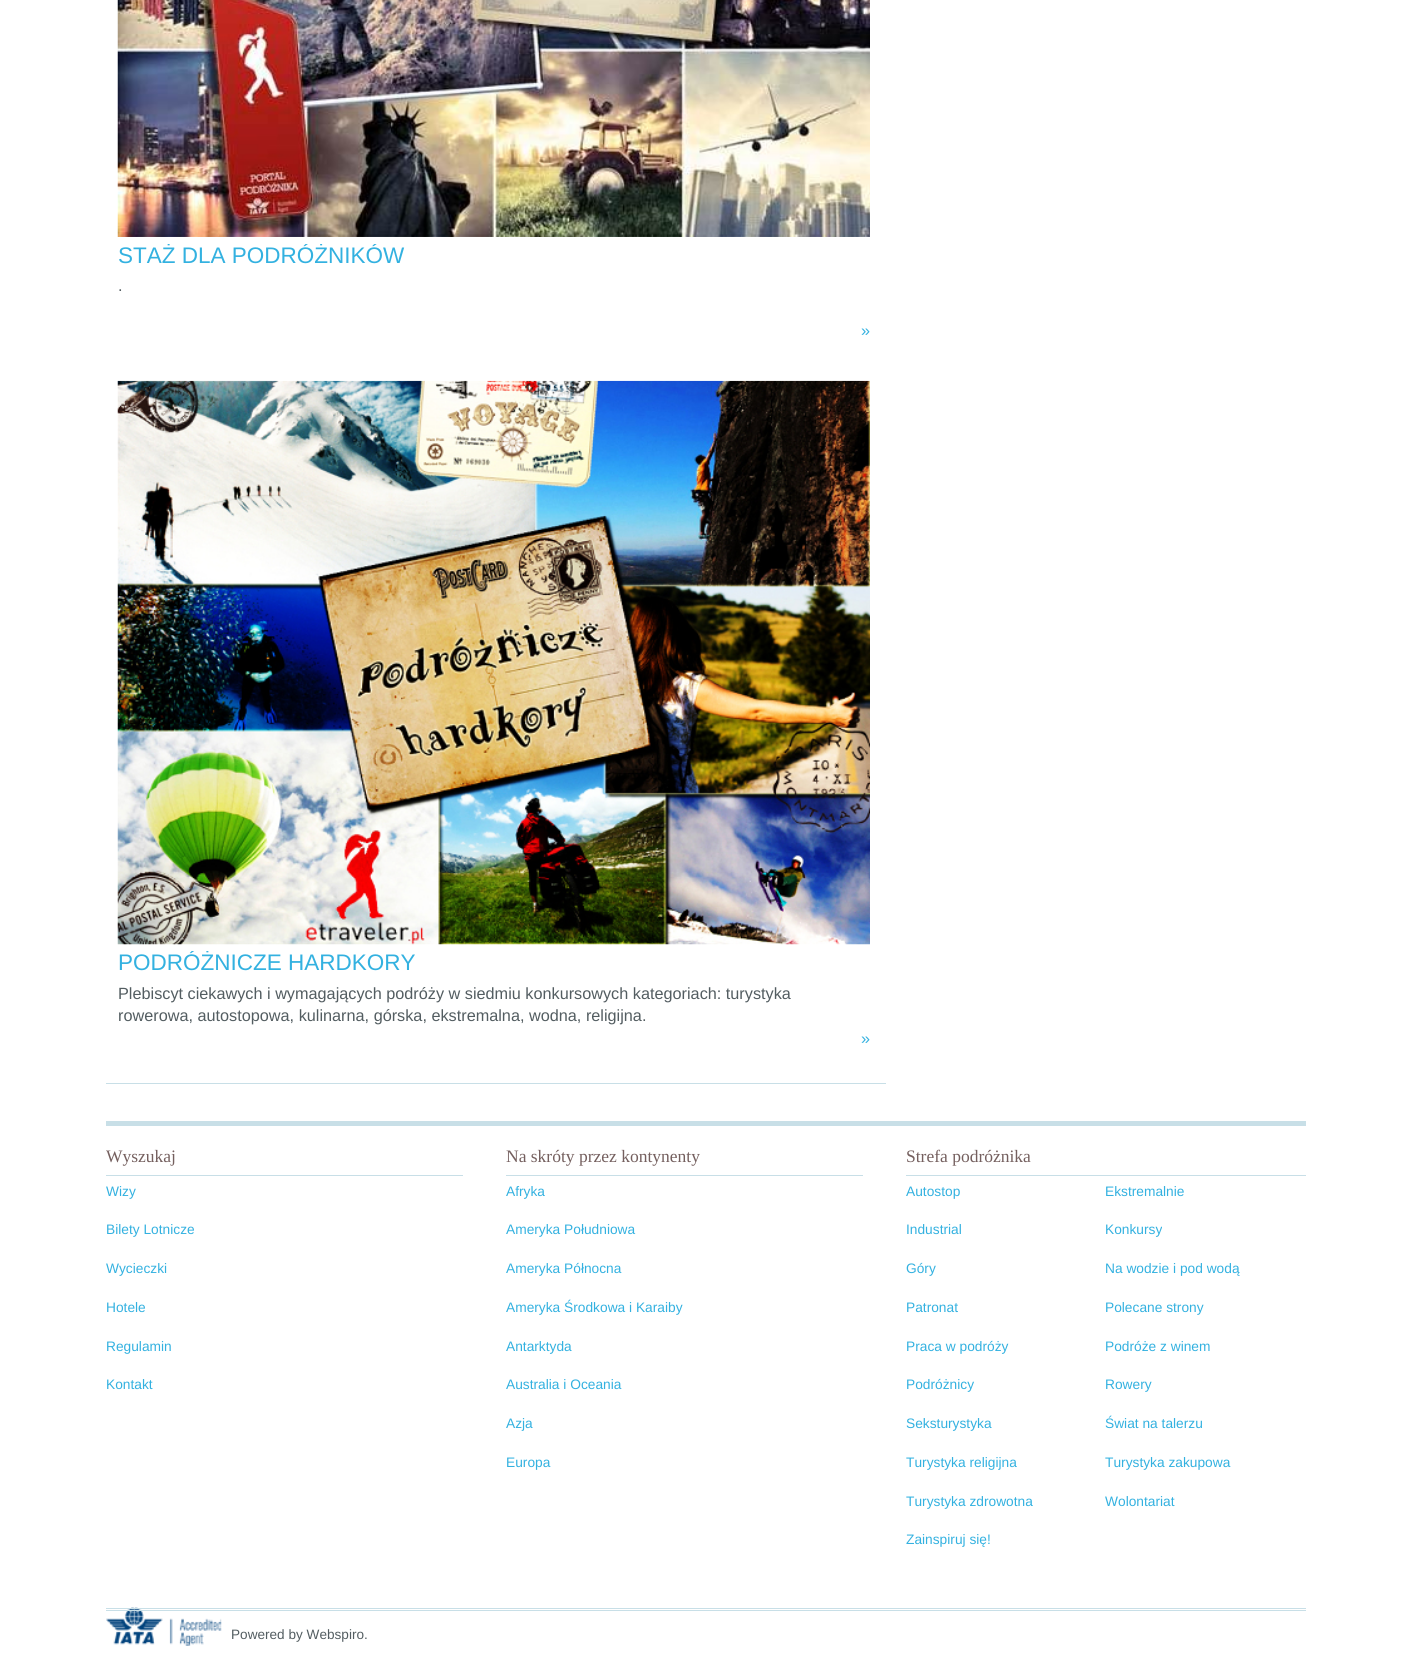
import math
import cairocffi as cairo

surface = cairo.ImageSurface(cairo.FORMAT_RGB24, 1412, 1658)
cr = cairo.Context(surface)
options = cairo.FontOptions()
options.set_hint_metrics(cairo.HINT_METRICS_OFF)
options.set_hint_style(cairo.HINT_STYLE_NONE)
cr.set_font_options(options)
cr.set_miter_limit(4)


def use_color(code):
    cr.set_source_rgb(*(v / 255 for v in bytes.fromhex(code[-6:])))


def picture(path, x, y, w, h):
    cr.save()
    cr.set_source_surface(cairo.ImageSurface.create_from_png(path), x, y)
    cr.rectangle(x, y, w, h)
    cr.fill()
    cr.restore()


use_color("#ffffff")
cr.paint()
use_color("#c8dfe7")
cr.rectangle(106, 1083, 780, 1)
cr.fill()
picture("img1.png", 117, 0, 753, 237)
cr.save()
cr.rectangle(118, 244, 752, 25)
cr.clip()
cr.select_font_face("Liberation Sans")
cr.set_font_size(22.5)
use_color("#33b1e0")
cr.move_to(118, 263)
cr.show_text("STAŻ DLA PODRÓŻNIKÓW")
cr.restore()
cr.select_font_face("Liberation Sans")
cr.set_font_size(16.25)
use_color("#535d61")
cr.move_to(118, 291)
cr.show_text(".")
use_color("#33b1e0")
cr.move_to(861, 336)
cr.show_text("»")
picture("img2.png", 117, 380, 753, 565)
cr.save()
cr.rectangle(118, 951, 752, 25)
cr.clip()
cr.set_font_size(22.5)
cr.move_to(118, 970)
cr.show_text("PODRÓŻNICZE HARDKORY")
cr.restore()
use_color("#535d61")
cr.move_to(118, 999)
cr.show_text("Plebiscyt ciekawych i wymagających podróży w siedmiu konkursowych kategoriach: turystyka")
cr.move_to(118, 1021)
cr.show_text("rowerowa, autostopowa, kulinarna, górska, ekstremalna, wodna, religijna.")
use_color("#33b1e0")
cr.move_to(861, 1044)
cr.show_text("»")
picture("img3.png", 106, 1607, 116, 39)
use_color("#c8dfe7")
cr.rectangle(106, 1121, 1200, 5)
cr.fill()
cr.rectangle(106, 1175, 357, 1)
cr.fill()
cr.select_font_face("Liberation Serif")
cr.set_font_size(17.5)
use_color("#745f5e")
cr.move_to(106, 1162)
cr.show_text("Wyszukaj")
cr.select_font_face("Liberation Sans")
cr.set_font_size(13.75)
use_color("#33b1e0")
cr.move_to(106, 1196)
cr.show_text("Wizy")
cr.move_to(106, 1234)
cr.show_text("Bilety Lotnicze")
cr.move_to(106, 1273)
cr.show_text("Wycieczki")
cr.move_to(106, 1312)
cr.show_text("Hotele")
cr.move_to(106, 1351)
cr.show_text("Regulamin")
cr.move_to(106, 1389)
cr.show_text("Kontakt")
use_color("#c8dfe7")
cr.rectangle(506, 1175, 357, 1)
cr.fill()
cr.select_font_face("Liberation Serif")
cr.set_font_size(17.5)
use_color("#745f5e")
cr.move_to(506, 1162)
cr.show_text("Na skróty przez kontynenty")
cr.select_font_face("Liberation Sans")
cr.set_font_size(13.75)
use_color("#33b1e0")
cr.move_to(506, 1196)
cr.show_text("Afryka")
cr.move_to(506, 1234)
cr.show_text("Ameryka Południowa")
cr.move_to(506, 1273)
cr.show_text("Ameryka Północna")
cr.move_to(506, 1312)
cr.show_text("Ameryka Środkowa i Karaiby")
cr.move_to(506, 1351)
cr.show_text("Antarktyda")
cr.move_to(506, 1389)
cr.show_text("Australia i Oceania")
cr.move_to(506, 1428)
cr.show_text("Azja")
cr.move_to(506, 1467)
cr.show_text("Europa")
use_color("#c8dfe7")
cr.rectangle(906, 1175, 400, 1)
cr.fill()
cr.select_font_face("Liberation Serif")
cr.set_font_size(17.5)
use_color("#745f5e")
cr.move_to(906, 1162)
cr.show_text("Strefa podróżnika")
cr.select_font_face("Liberation Sans")
cr.set_font_size(13.75)
use_color("#33b1e0")
cr.move_to(906, 1196)
cr.show_text("Autostop")
cr.move_to(1105, 1196)
cr.show_text("Ekstremalnie")
cr.move_to(906, 1234)
cr.show_text("Industrial")
cr.move_to(1105, 1234)
cr.show_text("Konkursy")
cr.move_to(906, 1273)
cr.show_text("Góry")
cr.move_to(1105, 1273)
cr.show_text("Na wodzie i pod wodą")
cr.move_to(906, 1312)
cr.show_text("Patronat")
cr.move_to(1105, 1312)
cr.show_text("Polecane strony")
cr.move_to(906, 1351)
cr.show_text("Praca w podróży")
cr.move_to(1105, 1351)
cr.show_text("Podróże z winem")
cr.move_to(906, 1389)
cr.show_text("Podróżnicy")
cr.move_to(1105, 1389)
cr.show_text("Rowery")
cr.move_to(906, 1428)
cr.show_text("Seksturystyka")
cr.move_to(1105, 1428)
cr.show_text("Świat na talerzu")
cr.move_to(906, 1467)
cr.show_text("Turystyka religijna")
cr.move_to(1105, 1467)
cr.show_text("Turystyka zakupowa")
cr.move_to(906, 1506)
cr.show_text("Turystyka zdrowotna")
cr.move_to(1105, 1506)
cr.show_text("Wolontariat")
cr.move_to(906, 1544)
cr.show_text("Zainspiruj się!")
use_color("#c8dfe7")
cr.rectangle(106, 1608, 1200, 1)
cr.fill()
cr.rectangle(106, 1610, 1200, 1)
cr.fill()
cr.set_font_size(13.6)
use_color("#535d61")
cr.move_to(231, 1639)
cr.show_text("Powered by Webspiro.")
surface.write_to_png("result.png")
